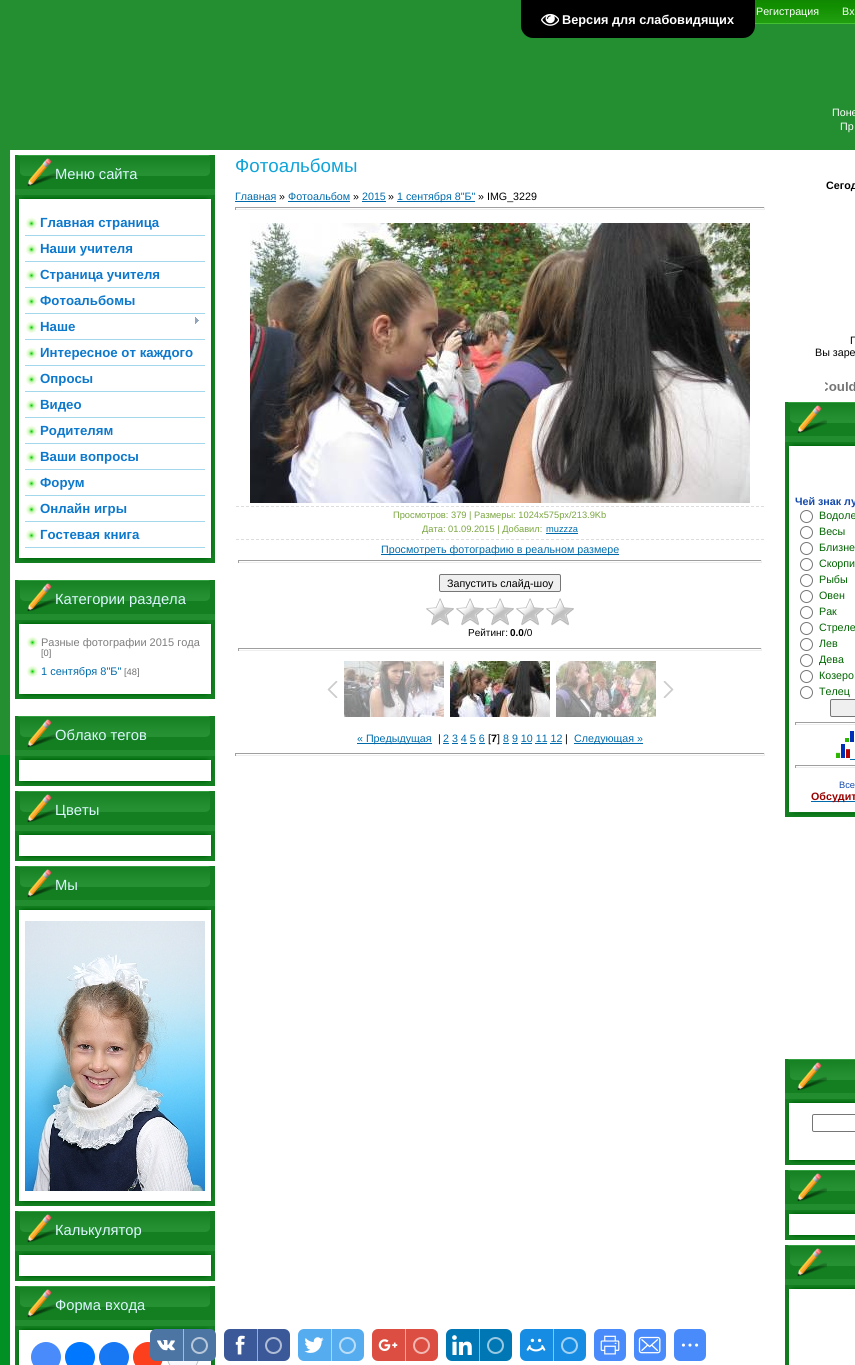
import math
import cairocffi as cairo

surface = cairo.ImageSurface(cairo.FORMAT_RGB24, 855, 1365)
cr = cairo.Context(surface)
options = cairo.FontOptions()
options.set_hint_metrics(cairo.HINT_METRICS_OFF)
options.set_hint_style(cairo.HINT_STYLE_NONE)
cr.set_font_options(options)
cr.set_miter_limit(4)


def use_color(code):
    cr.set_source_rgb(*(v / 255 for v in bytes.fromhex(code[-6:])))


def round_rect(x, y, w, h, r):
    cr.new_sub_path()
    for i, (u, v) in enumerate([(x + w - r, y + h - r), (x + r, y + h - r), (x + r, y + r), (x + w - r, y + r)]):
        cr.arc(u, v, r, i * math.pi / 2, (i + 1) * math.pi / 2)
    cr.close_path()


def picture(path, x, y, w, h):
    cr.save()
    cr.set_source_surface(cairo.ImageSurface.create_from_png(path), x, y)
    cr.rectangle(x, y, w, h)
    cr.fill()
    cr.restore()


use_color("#009024")
cr.paint()
use_color("#238f30")
cr.rectangle(0, 0, 855, 755)
cr.fill()
use_color("#ffffff")
cr.rectangle(10, 150, 845, 1215)
cr.fill()
picture("img1.png", 755, 0, 100, 24)
cr.select_font_face("Liberation Sans")
cr.set_font_size(10.7)
cr.move_to(756, 15)
cr.show_text("Регистрация")
cr.move_to(842, 15)
cr.show_text("Вх")
cr.move_to(832, 116)
cr.show_text("Поне")
cr.move_to(840, 130)
cr.show_text("Пр")
picture("img2.png", 15, 195, 200, 368)
use_color("#218d2e")
cr.rectangle(15, 189, 200, 6)
cr.fill()
picture("img3.png", 15, 155, 200, 34)
cr.set_font_size(14.75)
use_color("#dcf6ff")
cr.move_to(55, 179)
cr.show_text("Меню сайта")
picture("img4.png", 17, 195, 196, 6)
picture("img5.png", 25, 217, 12, 12)
use_color("#a2d7ec")
cr.rectangle(25, 235, 180, 1)
cr.fill()
cr.select_font_face("Liberation Sans", cairo.FONT_SLANT_NORMAL, cairo.FONT_WEIGHT_BOLD)
cr.set_font_size(13.25)
use_color("#0d79cd")
cr.move_to(40, 227)
cr.show_text("Главная страница")
picture("img5.png", 25, 243, 12, 12)
use_color("#a2d7ec")
cr.rectangle(25, 261, 180, 1)
cr.fill()
use_color("#0d79cd")
cr.move_to(40, 253)
cr.show_text("Наши учителя")
picture("img5.png", 25, 269, 12, 12)
use_color("#a2d7ec")
cr.rectangle(25, 287, 180, 1)
cr.fill()
use_color("#0d79cd")
cr.move_to(40, 279)
cr.show_text("Страница учителя")
picture("img5.png", 25, 295, 12, 12)
use_color("#a2d7ec")
cr.rectangle(25, 313, 180, 1)
cr.fill()
use_color("#0d79cd")
cr.move_to(40, 305)
cr.show_text("Фотоальбомы")
picture("img5.png", 25, 321, 12, 12)
use_color("#a2d7ec")
cr.rectangle(25, 339, 180, 1)
cr.fill()
use_color("#0d79cd")
cr.move_to(40, 331)
cr.show_text("Наше")
picture("img6.png", 195, 317, 4, 7)
picture("img5.png", 25, 347, 12, 12)
use_color("#a2d7ec")
cr.rectangle(25, 365, 180, 1)
cr.fill()
use_color("#0d79cd")
cr.move_to(40, 357)
cr.show_text("Интересное от каждого")
picture("img5.png", 25, 373, 12, 12)
use_color("#a2d7ec")
cr.rectangle(25, 391, 180, 1)
cr.fill()
use_color("#0d79cd")
cr.move_to(40, 383)
cr.show_text("Опросы")
picture("img5.png", 25, 399, 12, 12)
use_color("#a2d7ec")
cr.rectangle(25, 417, 180, 1)
cr.fill()
use_color("#0d79cd")
cr.move_to(40, 409)
cr.show_text("Видео")
picture("img5.png", 25, 425, 12, 12)
use_color("#a2d7ec")
cr.rectangle(25, 443, 180, 1)
cr.fill()
use_color("#0d79cd")
cr.move_to(40, 435)
cr.show_text("Родителям")
picture("img5.png", 25, 451, 12, 12)
use_color("#a2d7ec")
cr.rectangle(25, 469, 180, 1)
cr.fill()
use_color("#0d79cd")
cr.move_to(40, 461)
cr.show_text("Ваши вопросы")
picture("img5.png", 25, 477, 12, 12)
use_color("#a2d7ec")
cr.rectangle(25, 495, 180, 1)
cr.fill()
use_color("#0d79cd")
cr.move_to(40, 487)
cr.show_text("Форум")
picture("img5.png", 25, 503, 12, 12)
use_color("#a2d7ec")
cr.rectangle(25, 521, 180, 1)
cr.fill()
use_color("#0d79cd")
cr.move_to(40, 513)
cr.show_text("Онлайн игры")
picture("img5.png", 25, 529, 12, 12)
use_color("#a2d7ec")
cr.rectangle(25, 547, 180, 1)
cr.fill()
use_color("#0d79cd")
cr.move_to(40, 539)
cr.show_text("Гостевая книга")
picture("img7.png", 15, 620, 200, 79)
use_color("#218d2e")
cr.rectangle(15, 614, 200, 6)
cr.fill()
picture("img3.png", 15, 580, 200, 34)
cr.select_font_face("Liberation Sans")
cr.set_font_size(14.75)
use_color("#dcf6ff")
cr.move_to(55, 604)
cr.show_text("Категории раздела")
picture("img4.png", 17, 620, 196, 6)
picture("img5.png", 26, 636, 12, 12)
cr.set_font_size(11)
use_color("#7d7d7d")
cr.move_to(41, 646)
cr.show_text("Разные фотографии 2015 года")
cr.set_font_size(9.3)
use_color("#6e6e6e")
cr.move_to(41, 656)
cr.show_text("[0]")
picture("img5.png", 26, 665, 12, 12)
cr.set_font_size(11)
use_color("#016cac")
cr.move_to(41, 675)
cr.show_text("1 сентября 8\"Б\"")
cr.set_font_size(9.3)
use_color("#6e6e6e")
cr.move_to(124, 675)
cr.show_text("[48]")
picture("img8.png", 15, 756, 200, 30)
use_color("#218d2e")
cr.rectangle(15, 750, 200, 6)
cr.fill()
picture("img3.png", 15, 716, 200, 34)
cr.set_font_size(14.75)
use_color("#dcf6ff")
cr.move_to(55, 740)
cr.show_text("Облако тегов")
picture("img4.png", 17, 756, 196, 6)
picture("img8.png", 15, 831, 200, 30)
use_color("#218d2e")
cr.rectangle(15, 825, 200, 6)
cr.fill()
picture("img3.png", 15, 791, 200, 34)
use_color("#dcf6ff")
cr.move_to(55, 815)
cr.show_text("Цветы")
picture("img4.png", 17, 831, 196, 6)
picture("img9.png", 15, 906, 200, 300)
use_color("#218d2e")
cr.rectangle(15, 900, 200, 6)
cr.fill()
picture("img3.png", 15, 866, 200, 34)
use_color("#dcf6ff")
cr.move_to(55, 890)
cr.show_text("Мы")
picture("img4.png", 17, 906, 196, 6)
picture("img10.png", 25, 921, 180, 270)
picture("img8.png", 15, 1251, 200, 30)
use_color("#218d2e")
cr.rectangle(15, 1245, 200, 6)
cr.fill()
picture("img3.png", 15, 1211, 200, 34)
use_color("#dcf6ff")
cr.move_to(55, 1235)
cr.show_text("Калькулятор")
picture("img4.png", 17, 1251, 196, 6)
picture("img11.png", 15, 1326, 200, 39)
use_color("#218d2e")
cr.rectangle(15, 1320, 200, 6)
cr.fill()
picture("img3.png", 15, 1286, 200, 34)
use_color("#dcf6ff")
cr.move_to(55, 1310)
cr.show_text("Форма входа")
picture("img4.png", 17, 1326, 196, 6)
use_color("#498bfa")
cr.arc(46, 1357, 15, 0, 2 * math.pi)
cr.fill()
use_color("#0077ff")
cr.arc(80, 1357, 15, 0, 2 * math.pi)
cr.fill()
use_color("#1877f2")
cr.arc(114, 1357, 15, 0, 2 * math.pi)
cr.fill()
use_color("#fc3f1d")
cr.arc(148, 1357, 15, 0, 2 * math.pi)
cr.fill()
use_color("#f8f8fc")
cr.arc(183, 1357, 15.5, 0, 2 * math.pi)
cr.fill_preserve()
use_color("#c4c4c4")
cr.set_line_width(1)
cr.stroke()
cr.set_font_size(18.75)
use_color("#12a4d8")
cr.move_to(235, 172)
cr.show_text("Фотоальбомы")
cr.set_font_size(10.7)
use_color("#016cac")
cr.move_to(235, 200)
cr.show_text("Главная")
use_color("#0069a9")
cr.rectangle(235, 201, 41, 1)
cr.fill()
use_color("#000000")
cr.move_to(279, 200)
cr.show_text("»")
use_color("#016cac")
cr.move_to(288, 200)
cr.show_text("Фотоальбом")
use_color("#0069a9")
cr.rectangle(288, 201, 62, 1)
cr.fill()
use_color("#000000")
cr.move_to(353, 200)
cr.show_text("»")
use_color("#016cac")
cr.move_to(362, 200)
cr.show_text("2015")
use_color("#0069a9")
cr.rectangle(362, 201, 24, 1)
cr.fill()
use_color("#000000")
cr.move_to(388, 200)
cr.show_text("»")
use_color("#0069a9")
cr.rectangle(397, 201, 78, 1)
cr.fill()
use_color("#016cac")
cr.move_to(397, 200)
cr.show_text("1 сентября 8\"Б\"")
use_color("#000000")
cr.move_to(478, 200)
cr.show_text("» IMG_3229")
use_color("#9f9f9f")
cr.rectangle(235, 207, 530, 1)
cr.fill()
use_color("#eeeeee")
cr.rectangle(764, 207, 1, 3)
cr.fill()
cr.rectangle(235, 209, 530, 1)
cr.fill()
use_color("#9f9f9f")
cr.rectangle(235, 207, 1, 3)
cr.fill()
picture("img12.png", 250, 223, 500, 280)
cr.new_path()
cr.move_to(236, 506.5)
cr.line_to(764, 506.5)
use_color("#dddddd")
cr.set_dash([3, 2])
cr.stroke()
cr.new_path()
cr.move_to(236, 539.5)
cr.line_to(764, 539.5)
cr.stroke()
cr.set_font_size(9.3)
use_color("#79a53d")
cr.move_to(393, 518)
cr.show_text("Просмотров: 379 | Размеры: 1024x575px/213.9Kb")
cr.move_to(422, 532)
cr.show_text("Дата: 01.09.2015 | Добавил:")
use_color("#016cac")
cr.move_to(546, 532)
cr.show_text("muzzza")
use_color("#0069a9")
cr.rectangle(546, 533, 32, 1)
cr.fill()
cr.rectangle(381, 554, 238, 1)
cr.fill()
cr.set_font_size(10.7)
use_color("#016cac")
cr.move_to(381, 553)
cr.show_text("Просмотреть фотографию в реальном размере")
use_color("#9f9f9f")
cr.rectangle(238, 560, 524, 1)
cr.fill()
use_color("#eeeeee")
cr.rectangle(761, 560, 1, 3)
cr.fill()
cr.rectangle(238, 562, 524, 1)
cr.fill()
use_color("#9f9f9f")
cr.rectangle(238, 560, 1, 3)
cr.fill()
use_color("#efefef")
round_rect(439.5, 574.5, 121, 17, 1.5)
cr.fill_preserve()
use_color("#767676")
cr.set_dash([])
cr.stroke()
use_color("#000000")
cr.move_to(447, 587)
cr.show_text("Запустить слайд-шоу")
picture("img13.png", 426, 598, 148, 28)
cr.set_font_size(10)
cr.move_to(468, 636)
cr.show_text("Рейтинг:")
cr.select_font_face("Liberation Sans", cairo.FONT_SLANT_NORMAL, cairo.FONT_WEIGHT_BOLD)
cr.move_to(510, 636)
cr.show_text("0.0")
cr.select_font_face("Liberation Sans")
cr.move_to(524, 636)
cr.show_text("/0")
use_color("#9f9f9f")
cr.rectangle(238, 648, 524, 1)
cr.fill()
use_color("#eeeeee")
cr.rectangle(761, 648, 1, 3)
cr.fill()
cr.rectangle(238, 650, 524, 1)
cr.fill()
use_color("#9f9f9f")
cr.rectangle(238, 648, 1, 3)
cr.fill()
picture("img14.png", 327, 681, 11, 17)
picture("img15.png", 344, 661, 100, 56)
picture("img16.png", 450, 661, 100, 56)
picture("img17.png", 556, 661, 100, 56)
picture("img18.png", 663, 681, 11, 17)
use_color("#0069a9")
cr.rectangle(357, 743, 75, 1)
cr.fill()
cr.set_font_size(10.7)
use_color("#016cac")
cr.move_to(357, 742)
cr.show_text("« Предыдущая")
use_color("#000000")
cr.move_to(438, 742)
cr.show_text("|")
use_color("#016cac")
cr.move_to(443, 742)
cr.show_text("2 3 4 5 6")
use_color("#0069a9")
cr.rectangle(443, 743, 6, 1)
cr.fill()
use_color("#000000")
cr.move_to(488, 742)
cr.show_text("[")
cr.select_font_face("Liberation Sans", cairo.FONT_SLANT_NORMAL, cairo.FONT_WEIGHT_BOLD)
cr.move_to(491, 742)
cr.show_text("7")
cr.select_font_face("Liberation Sans")
cr.move_to(497, 742)
cr.show_text("]")
use_color("#016cac")
cr.move_to(503, 742)
cr.show_text("8 9 10 11 12")
use_color("#0069a9")
cr.rectangle(503, 743, 6, 1)
cr.fill()
use_color("#000000")
cr.move_to(565, 742)
cr.show_text("|")
use_color("#0069a9")
cr.rectangle(574, 743, 69, 1)
cr.fill()
use_color("#016cac")
cr.move_to(574, 742)
cr.show_text("Следующая »")
use_color("#0069a9")
cr.rectangle(452, 743, 6, 1)
cr.fill()
cr.rectangle(461, 743, 6, 1)
cr.fill()
cr.rectangle(470, 743, 6, 1)
cr.fill()
cr.rectangle(479, 743, 6, 1)
cr.fill()
cr.rectangle(512, 743, 6, 1)
cr.fill()
cr.rectangle(521, 743, 11, 1)
cr.fill()
cr.rectangle(535, 743, 12, 1)
cr.fill()
cr.rectangle(550, 743, 12, 1)
cr.fill()
use_color("#9f9f9f")
cr.rectangle(235, 753, 530, 1)
cr.fill()
use_color("#eeeeee")
cr.rectangle(764, 753, 1, 3)
cr.fill()
cr.rectangle(235, 755, 530, 1)
cr.fill()
use_color("#9f9f9f")
cr.rectangle(235, 753, 1, 3)
cr.fill()
cr.select_font_face("Liberation Sans", cairo.FONT_SLANT_NORMAL, cairo.FONT_WEIGHT_BOLD)
use_color("#000000")
cr.move_to(826, 189)
cr.show_text("Сегод")
cr.select_font_face("Liberation Sans")
cr.move_to(850, 344)
cr.show_text("Г")
cr.move_to(815, 356)
cr.show_text("Вы заре")
picture("img19.png", 825, 382, 30, 9)
picture("img20.png", 785, 442, 70, 375)
use_color("#218d2e")
cr.rectangle(785, 436, 70, 6)
cr.fill()
picture("img21.png", 785, 402, 70, 34)
picture("img22.png", 787, 442, 68, 6)
cr.select_font_face("Liberation Sans", cairo.FONT_SLANT_NORMAL, cairo.FONT_WEIGHT_BOLD)
use_color("#144aad")
cr.move_to(795, 505)
cr.show_text("Чей знак лу")
cr.new_path()
cr.arc(806.5, 516.5, 6, 0, 2 * math.pi)
use_color("#767676")
cr.stroke()
cr.select_font_face("Liberation Sans")
use_color("#006400")
cr.move_to(819, 519)
cr.show_text("Водоле")
cr.new_path()
cr.arc(806.5, 532.5, 6, 0, 2 * math.pi)
use_color("#767676")
cr.stroke()
use_color("#006400")
cr.move_to(819, 535)
cr.show_text("Весы")
cr.new_path()
cr.arc(806.5, 548.5, 6, 0, 2 * math.pi)
use_color("#767676")
cr.stroke()
use_color("#006400")
cr.move_to(819, 551)
cr.show_text("Близне")
cr.new_path()
cr.arc(806.5, 564.5, 6, 0, 2 * math.pi)
use_color("#767676")
cr.stroke()
use_color("#006400")
cr.move_to(819, 567)
cr.show_text("Скорпи")
cr.new_path()
cr.arc(806.5, 580.5, 6, 0, 2 * math.pi)
use_color("#767676")
cr.stroke()
use_color("#006400")
cr.move_to(819, 583)
cr.show_text("Рыбы")
cr.new_path()
cr.arc(806.5, 596.5, 6, 0, 2 * math.pi)
use_color("#767676")
cr.stroke()
use_color("#006400")
cr.move_to(819, 599)
cr.show_text("Овен")
cr.new_path()
cr.arc(806.5, 612.5, 6, 0, 2 * math.pi)
use_color("#767676")
cr.stroke()
use_color("#006400")
cr.move_to(819, 615)
cr.show_text("Рак")
cr.new_path()
cr.arc(806.5, 628.5, 6, 0, 2 * math.pi)
use_color("#767676")
cr.stroke()
use_color("#006400")
cr.move_to(819, 631)
cr.show_text("Стреле")
cr.new_path()
cr.arc(806.5, 644.5, 6, 0, 2 * math.pi)
use_color("#767676")
cr.stroke()
use_color("#006400")
cr.move_to(819, 647)
cr.show_text("Лев")
cr.new_path()
cr.arc(806.5, 660.5, 6, 0, 2 * math.pi)
use_color("#767676")
cr.stroke()
use_color("#006400")
cr.move_to(819, 663)
cr.show_text("Дева")
cr.new_path()
cr.arc(806.5, 676.5, 6, 0, 2 * math.pi)
use_color("#767676")
cr.stroke()
use_color("#006400")
cr.move_to(819, 679)
cr.show_text("Козеро")
cr.new_path()
cr.arc(806.5, 692.5, 6, 0, 2 * math.pi)
use_color("#767676")
cr.stroke()
use_color("#006400")
cr.move_to(819, 695)
cr.show_text("Телец")
use_color("#efefef")
round_rect(830.5, 699.5, 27, 17, 1.5)
cr.fill_preserve()
use_color("#767676")
cr.stroke()
use_color("#9f9f9f")
cr.rectangle(795, 722, 60, 1)
cr.fill()
use_color("#eeeeee")
cr.rectangle(795, 724, 60, 1)
cr.fill()
use_color("#9f9f9f")
cr.rectangle(795, 722, 1, 3)
cr.fill()
picture("img23.png", 845, 731, 9, 11)
picture("img24.png", 836, 744, 14, 14)
use_color("#0069a9")
cr.rectangle(850, 759, 5, 1)
cr.fill()
use_color("#9f9f9f")
cr.rectangle(795, 765, 60, 1)
cr.fill()
use_color("#eeeeee")
cr.rectangle(795, 767, 60, 1)
cr.fill()
use_color("#9f9f9f")
cr.rectangle(795, 765, 1, 3)
cr.fill()
cr.set_font_size(9.3)
use_color("#144aad")
cr.move_to(839, 788)
cr.show_text("Все")
use_color("#0069a9")
cr.rectangle(811, 801, 44, 1)
cr.fill()
cr.select_font_face("Liberation Sans", cairo.FONT_SLANT_NORMAL, cairo.FONT_WEIGHT_BOLD)
cr.set_font_size(10.7)
use_color("#990000")
cr.move_to(811, 800)
cr.show_text("Обсудит")
picture("img25.png", 785, 1099, 70, 66)
use_color("#218d2e")
cr.rectangle(785, 1093, 70, 6)
cr.fill()
picture("img21.png", 785, 1059, 70, 34)
picture("img22.png", 787, 1099, 68, 6)
round_rect(812.5, 1114.5, 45, 17, 1.5)
use_color("#767676")
cr.stroke()
picture("img26.png", 785, 1210, 70, 30)
use_color("#218d2e")
cr.rectangle(785, 1204, 70, 6)
cr.fill()
picture("img21.png", 785, 1170, 70, 34)
picture("img22.png", 787, 1210, 68, 6)
use_color("#107c1d")
cr.rectangle(785, 1285, 4, 80)
cr.fill()
use_color("#218d2e")
cr.rectangle(785, 1279, 70, 6)
cr.fill()
picture("img21.png", 785, 1245, 70, 34)
picture("img27.png", 788, 1285, 67, 13)
use_color("#000000")
cr.new_path()
cr.move_to(521, 0)
cr.line_to(755, 0)
cr.line_to(755, 26)
cr.curve_to(755, 32.5, 749.5, 38, 743, 38)
cr.line_to(533, 38)
cr.curve_to(526.5, 38, 521, 32.5, 521, 26)
cr.close_path()
cr.fill()
picture("img28.png", 541, 13, 18, 13)
cr.set_font_size(12.75)
use_color("#ffffff")
cr.move_to(562, 24)
cr.show_text("Версия для слабовидящих")
use_color("#4d75a3")
round_rect(150, 1329, 66, 32, 6)
cr.fill()
picture("img29.png", 157, 1340, 18, 11)
use_color("#a6bad1")
cr.rectangle(183, 1329, 1, 32)
cr.fill()
cr.arc(199.5, 1345.5, 7.5, 0, 2 * math.pi)
use_color("#b8c8da")
cr.set_line_width(2)
cr.stroke()
use_color("#3b5998")
round_rect(224, 1329, 66, 32, 6)
cr.fill()
picture("img30.png", 235, 1335, 10, 20)
use_color("#9daccc")
cr.rectangle(257, 1329, 1, 32)
cr.fill()
cr.arc(273.5, 1345.5, 7.5, 0, 2 * math.pi)
use_color("#b1bdd6")
cr.stroke()
use_color("#55acee")
round_rect(298, 1329, 66, 32, 6)
cr.fill()
picture("img31.png", 304, 1337, 20, 16)
use_color("#aad6f7")
cr.rectangle(331, 1329, 1, 32)
cr.fill()
cr.arc(347.5, 1345.5, 7.5, 0, 2 * math.pi)
use_color("#bbdef8")
cr.stroke()
use_color("#dc4e41")
round_rect(372, 1329, 66, 32, 6)
cr.fill()
picture("img32.png", 378, 1339, 20, 12)
use_color("#eea7a0")
cr.rectangle(405, 1329, 1, 32)
cr.fill()
cr.arc(421.5, 1345.5, 7.5, 0, 2 * math.pi)
use_color("#f1b8b3")
cr.stroke()
use_color("#0077b5")
round_rect(446, 1329, 66, 32, 6)
cr.fill()
picture("img33.png", 452, 1335, 20, 20)
use_color("#80bbda")
cr.rectangle(479, 1329, 1, 32)
cr.fill()
cr.arc(495.5, 1345.5, 7.5, 0, 2 * math.pi)
use_color("#99c9e1")
cr.stroke()
use_color("#168de2")
round_rect(520, 1329, 66, 32, 6)
cr.fill()
picture("img34.png", 526, 1338, 20, 14)
use_color("#8bc6f1")
cr.rectangle(553, 1329, 1, 32)
cr.fill()
cr.arc(569.5, 1345.5, 7.5, 0, 2 * math.pi)
use_color("#a2d1f3")
cr.stroke()
use_color("#498bfa")
round_rect(594, 1329, 32, 32, 6)
cr.fill()
picture("img35.png", 600, 1335, 20, 20)
round_rect(634, 1329, 32, 32, 6)
cr.fill()
picture("img36.png", 638, 1336, 23, 18)
round_rect(674, 1329, 32, 32, 6)
cr.fill()
picture("img37.png", 681, 1343, 18, 4)
surface.write_to_png("result.png")
